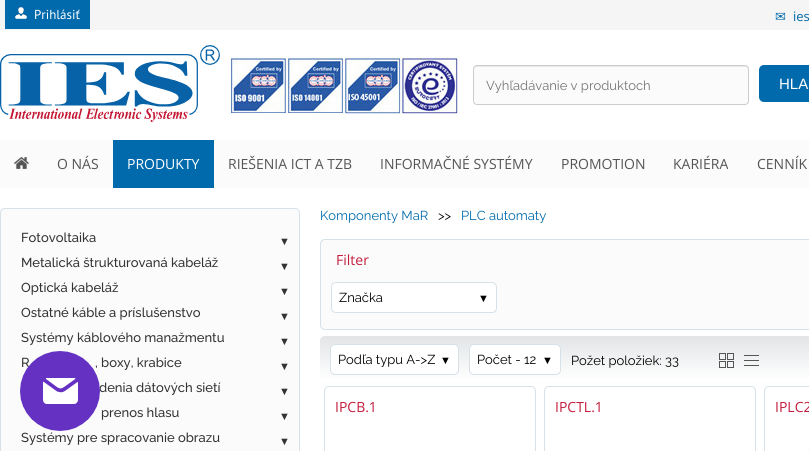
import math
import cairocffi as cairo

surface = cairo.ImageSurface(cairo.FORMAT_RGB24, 809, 451)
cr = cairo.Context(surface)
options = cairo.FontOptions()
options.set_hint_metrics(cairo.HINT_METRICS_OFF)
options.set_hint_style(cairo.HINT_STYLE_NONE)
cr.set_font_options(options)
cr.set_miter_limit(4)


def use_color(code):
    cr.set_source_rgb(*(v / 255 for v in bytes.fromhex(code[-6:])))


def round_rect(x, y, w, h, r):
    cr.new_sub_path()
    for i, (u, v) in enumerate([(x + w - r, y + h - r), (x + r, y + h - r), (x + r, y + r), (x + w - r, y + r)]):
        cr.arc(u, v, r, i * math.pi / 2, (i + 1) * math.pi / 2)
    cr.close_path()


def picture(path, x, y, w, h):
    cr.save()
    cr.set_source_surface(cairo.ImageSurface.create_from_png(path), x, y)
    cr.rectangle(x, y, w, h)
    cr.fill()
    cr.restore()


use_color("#ffffff")
cr.paint()
use_color("#f5f5f5")
cr.rectangle(0, 0, 809, 30)
cr.fill()
use_color("#006aac")
cr.rectangle(5, 0, 85, 29)
cr.fill()
picture("img1.png", 15, 7, 12, 12)
cr.select_font_face("PT Sans")
cr.set_font_size(13)
use_color("#ffffff")
cr.move_to(34, 19)
cr.show_text("Prihlásiť")
cr.select_font_face("DejaVu Sans")
use_color("#006aac")
cr.move_to(775, 21)
cr.show_text("✉")
cr.select_font_face("Open Sans")
cr.move_to(793, 21)
cr.show_text("ies")
picture("img2.png", 0, 45, 220, 77)
picture("img3.png", 230, 57, 57, 56)
picture("img4.png", 287, 57, 57, 56)
picture("img5.png", 344, 57, 57, 57)
picture("img6.png", 401, 57, 57, 57)
use_color("#fbfbfb")
round_rect(473, 65, 276, 40, 4)
cr.fill()
use_color("#e8e8e8")
cr.new_path()
cr.move_to(477, 67)
cr.line_to(745, 67)
cr.curve_to(747, 67, 748, 68, 748, 70)
cr.line_to(748, 69)
cr.curve_to(748, 67, 747, 66, 745, 66)
cr.line_to(477, 66)
cr.curve_to(475, 66, 474, 67, 474, 69)
cr.line_to(474, 70)
cr.curve_to(474, 68, 475, 67, 477, 67)
cr.close_path()
cr.fill()
round_rect(473.5, 65.5, 275, 39, 3.5)
use_color("#cccccc")
cr.set_line_width(1)
cr.stroke()
cr.select_font_face("Raleway")
use_color("#757575")
cr.move_to(486, 90)
cr.show_text("Vyhľadávanie v produktoch")
use_color("#006aac")
round_rect(759, 65, 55, 37, 5)
cr.fill()
cr.select_font_face("Liberation Sans")
cr.set_font_size(15)
use_color("#ffffff")
cr.move_to(779, 89)
cr.show_text("HLA")
use_color("#fbfbfb")
cr.rectangle(0, 140, 809, 48)
cr.fill()
picture("img7.png", 14, 157, 15, 12)
cr.select_font_face("Open Sans")
cr.set_font_size(14)
use_color("#555555")
cr.move_to(57, 169)
cr.show_text("O NÁS")
use_color("#006aac")
cr.rectangle(113, 140, 101, 48)
cr.fill()
use_color("#ffffff")
cr.move_to(127, 169)
cr.show_text("PRODUKTY")
use_color("#555555")
cr.move_to(228, 169)
cr.show_text("RIEŠENIA ICT A TZB")
cr.move_to(380, 169)
cr.show_text("INFORMAČNÉ SYSTÉMY")
cr.move_to(561, 169)
cr.show_text("PROMOTION")
cr.move_to(673, 169)
cr.show_text("KARIÉRA")
cr.move_to(757, 169)
cr.show_text("CENNÍK")
use_color("#fbfbfb")
round_rect(0.5, 208.5, 299, 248, 4.5)
cr.fill_preserve()
use_color("#d6e1e8")
cr.stroke()
cr.select_font_face("Raleway Medium")
cr.set_font_size(13)
use_color("#333333")
cr.move_to(21, 242)
cr.show_text("Fotovoltaika")
cr.select_font_face("Liberation Serif")
cr.set_font_size(11)
cr.move_to(279, 245)
cr.show_text("▼")
cr.select_font_face("Raleway Medium")
cr.set_font_size(13)
cr.move_to(21, 267)
cr.show_text("Metalická štrukturovaná kabeláž")
cr.select_font_face("Liberation Serif")
cr.set_font_size(11)
cr.move_to(279, 270)
cr.show_text("▼")
cr.select_font_face("Raleway Medium")
cr.set_font_size(13)
cr.move_to(21, 292)
cr.show_text("Optická kabeláž")
cr.select_font_face("Liberation Serif")
cr.set_font_size(11)
cr.move_to(279, 295)
cr.show_text("▼")
cr.select_font_face("Raleway Medium")
cr.set_font_size(13)
cr.move_to(21, 317)
cr.show_text("Ostatné káble a príslušenstvo")
cr.select_font_face("Liberation Serif")
cr.set_font_size(11)
cr.move_to(279, 320)
cr.show_text("▼")
cr.select_font_face("Raleway Medium")
cr.set_font_size(13)
cr.move_to(21, 342)
cr.show_text("Systémy káblového manažmentu")
cr.select_font_face("Liberation Serif")
cr.set_font_size(11)
cr.move_to(279, 345)
cr.show_text("▼")
cr.select_font_face("Raleway Medium")
cr.set_font_size(13)
cr.move_to(21, 367)
cr.show_text("R")
cr.move_to(95, 367)
cr.show_text(", boxy, krabice")
cr.select_font_face("Liberation Serif")
cr.set_font_size(11)
cr.move_to(279, 370)
cr.show_text("▼")
cr.select_font_face("Raleway Medium")
cr.set_font_size(13)
cr.move_to(99, 392)
cr.show_text("denia dátových sietí")
cr.select_font_face("Liberation Serif")
cr.set_font_size(11)
cr.move_to(279, 395)
cr.show_text("▼")
cr.select_font_face("Raleway Medium")
cr.set_font_size(13)
cr.move_to(101, 417)
cr.show_text("prenos hlasu")
cr.select_font_face("Liberation Serif")
cr.set_font_size(11)
cr.move_to(279, 420)
cr.show_text("▼")
cr.select_font_face("Raleway Medium")
cr.set_font_size(13)
cr.move_to(21, 442)
cr.show_text("Systémy pre spracovanie obrazu")
cr.select_font_face("Liberation Serif")
cr.set_font_size(11)
cr.move_to(279, 445)
cr.show_text("▼")
cr.select_font_face("Raleway")
cr.set_font_size(13)
use_color("#006aac")
cr.move_to(320, 220)
cr.show_text("Komponenty MaR")
use_color("#000000")
cr.move_to(438, 220)
cr.show_text(">>")
use_color("#006aac")
cr.move_to(461, 220)
cr.show_text("PLC automaty")
use_color("#fbfbfb")
round_rect(320.5, 239.5, 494, 90, 4.5)
cr.fill_preserve()
use_color("#d6e1e8")
cr.stroke()
cr.select_font_face("Open Sans")
cr.set_font_size(14)
use_color("#c31e3d")
cr.move_to(336, 265)
cr.show_text("Filter")
use_color("#ffffff")
round_rect(331.5, 282.5, 165, 30, 4.5)
cr.fill_preserve()
use_color("#d6e1e8")
cr.stroke()
cr.select_font_face("Raleway")
cr.set_font_size(13)
use_color("#000000")
cr.move_to(339, 302)
cr.show_text("Značka")
cr.select_font_face("Liberation Serif")
cr.set_font_size(11)
cr.move_to(478, 302)
cr.show_text("▼")
gradient = cairo.LinearGradient(760, 336, 760, 380)
gradient.add_color_stop_rgba(0, 0.886, 0.894, 0.902, 1)
gradient.add_color_stop_rgba(1, 1, 1, 1, 1)
cr.set_source(gradient)
round_rect(320, 336, 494, 44, 5)
cr.fill()
use_color("#ffffff")
round_rect(330.5, 344.5, 128, 30, 4.5)
cr.fill_preserve()
use_color("#d6e1e8")
cr.stroke()
cr.select_font_face("Raleway")
cr.set_font_size(13)
use_color("#000000")
cr.move_to(338, 364)
cr.show_text("Podľa typu A->Z")
cr.select_font_face("Liberation Serif")
cr.set_font_size(11)
cr.move_to(440, 364)
cr.show_text("▼")
use_color("#ffffff")
round_rect(469.5, 344.5, 91, 30, 4.5)
cr.fill_preserve()
use_color("#d6e1e8")
cr.stroke()
cr.select_font_face("Raleway")
cr.set_font_size(13)
use_color("#000000")
cr.move_to(477, 364)
cr.show_text("Počet - 12")
cr.select_font_face("Liberation Serif")
cr.set_font_size(11)
cr.move_to(542, 364)
cr.show_text("▼")
cr.select_font_face("Raleway")
cr.set_font_size(13)
cr.move_to(571, 365)
cr.show_text("Požet položiek: 33")
cr.rectangle(719.5, 353.5, 6, 6)
use_color("#555555")
cr.stroke()
cr.rectangle(727.5, 353.5, 6, 6)
cr.stroke()
cr.rectangle(719.5, 361.5, 6, 6)
cr.stroke()
cr.rectangle(727.5, 361.5, 6, 6)
cr.stroke()
cr.rectangle(744, 355, 15, 1)
cr.fill()
cr.rectangle(744, 360, 15, 1)
cr.fill()
cr.rectangle(744, 365, 15, 1)
cr.fill()
round_rect(324.5, 386.5, 211, 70, 4.5)
use_color("#d6e1e8")
cr.stroke()
cr.select_font_face("Open Sans")
cr.set_font_size(14)
use_color("#c31e3d")
cr.move_to(335, 412)
cr.show_text("IPCB.1")
round_rect(544.5, 386.5, 211, 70, 4.5)
use_color("#d6e1e8")
cr.stroke()
use_color("#c31e3d")
cr.move_to(555, 412)
cr.show_text("IPCTL.1")
round_rect(764.5, 386.5, 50, 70, 4.5)
use_color("#d6e1e8")
cr.stroke()
use_color("#c31e3d")
cr.move_to(775, 412)
cr.show_text("IPLC2")
picture("img8.png", 807, 448, 2, 3)
picture("img9.png", 20, 351, 80, 80)
surface.write_to_png("result.png")
